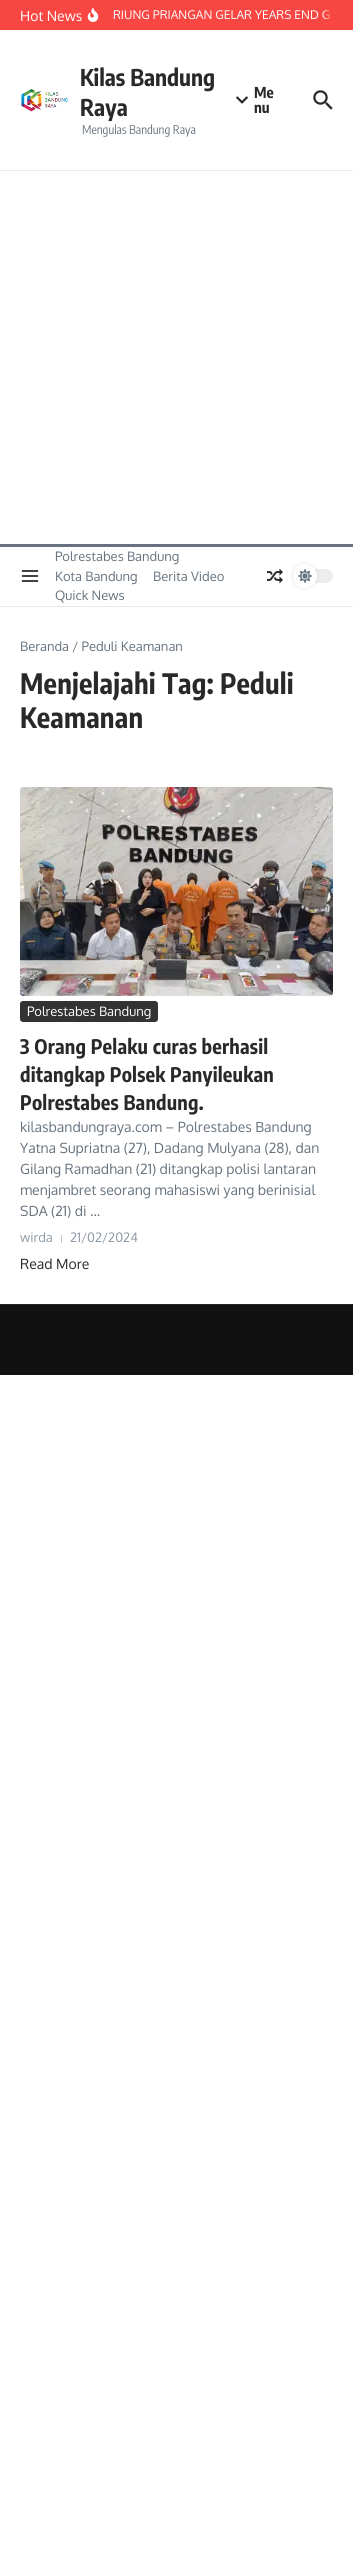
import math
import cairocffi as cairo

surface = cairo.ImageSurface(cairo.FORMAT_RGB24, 353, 2558)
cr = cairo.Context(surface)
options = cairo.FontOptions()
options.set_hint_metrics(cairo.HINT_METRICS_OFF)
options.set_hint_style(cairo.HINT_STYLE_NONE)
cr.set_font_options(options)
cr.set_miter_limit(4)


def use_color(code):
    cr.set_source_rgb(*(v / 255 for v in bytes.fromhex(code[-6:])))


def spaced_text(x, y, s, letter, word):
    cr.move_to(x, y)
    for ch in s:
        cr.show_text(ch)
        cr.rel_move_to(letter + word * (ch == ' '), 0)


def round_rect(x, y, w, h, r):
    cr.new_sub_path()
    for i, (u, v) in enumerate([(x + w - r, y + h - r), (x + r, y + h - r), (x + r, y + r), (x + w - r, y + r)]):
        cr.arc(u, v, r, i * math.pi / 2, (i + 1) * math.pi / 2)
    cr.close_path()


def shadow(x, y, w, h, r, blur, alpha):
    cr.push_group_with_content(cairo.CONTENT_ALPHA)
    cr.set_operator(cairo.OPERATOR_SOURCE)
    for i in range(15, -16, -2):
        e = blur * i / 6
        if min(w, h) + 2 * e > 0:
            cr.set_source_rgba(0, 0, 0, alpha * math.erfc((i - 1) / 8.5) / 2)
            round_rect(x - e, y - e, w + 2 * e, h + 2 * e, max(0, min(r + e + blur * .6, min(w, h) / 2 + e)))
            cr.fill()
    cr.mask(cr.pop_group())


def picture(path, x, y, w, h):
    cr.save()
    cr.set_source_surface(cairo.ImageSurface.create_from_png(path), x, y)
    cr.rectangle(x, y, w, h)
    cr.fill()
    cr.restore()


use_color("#ffffff")
cr.paint()
use_color("#f84643")
cr.rectangle(0, 0, 353, 30)
cr.fill()
cr.select_font_face("Oxygen")
cr.set_font_size(14)
use_color("#ffffff")
cr.move_to(20, 21)
cr.show_text("Hot News")
picture("img1.png", 87, 8, 12, 14)
cr.set_font_size(12)
cr.move_to(113, 19)
cr.show_text("RIUNG PRIANGAN GELAR YEARS END G")
gradient = cairo.LinearGradient(323, 15, 333, 15)
gradient.add_color_stop_rgba(0, 0.973, 0.275, 0.263, 0)
gradient.add_color_stop_rgba(1, 0.973, 0.275, 0.263, 1)
cr.set_source(gradient)
cr.rectangle(323, 10, 7, 10)
cr.fill()
use_color("#e8e8e8")
cr.rectangle(0, 170, 353, 1)
cr.fill()
picture("img2.png", 21, 89, 48, 23)
cr.select_font_face("Encode Sans Condensed", cairo.FONT_SLANT_NORMAL, cairo.FONT_WEIGHT_BOLD)
cr.set_font_size(23)
use_color("#292929")
cr.move_to(80, 86)
cr.show_text("Kilas Bandung")
cr.move_to(80, 116)
cr.show_text("Raya")
cr.select_font_face("Encode Sans Condensed")
cr.set_font_size(12)
use_color("#67737e")
cr.move_to(82, 134)
cr.show_text("Mengulas Bandung Raya")
picture("img3.png", 236, 96, 12, 8)
cr.select_font_face("Encode Sans Condensed", cairo.FONT_SLANT_NORMAL, cairo.FONT_WEIGHT_BOLD)
cr.set_font_size(15)
use_color("#292929")
cr.move_to(254, 98)
cr.show_text("Me")
cr.move_to(254, 113)
cr.show_text("nu")
picture("img4.png", 313, 90, 20, 20)
use_color("#67737e")
cr.rectangle(0, 544, 353, 3)
cr.fill()
use_color("#e8e8e8")
cr.rectangle(0, 606, 353, 1)
cr.fill()
picture("img5.png", 21, 570, 18, 12)
cr.select_font_face("Oxygen")
cr.set_font_size(13)
use_color("#67737e")
cr.move_to(55, 561)
cr.show_text("Polrestabes Bandung")
cr.move_to(55, 581)
cr.show_text("Kota Bandung")
cr.move_to(153, 581)
cr.show_text("Berita Video")
cr.move_to(55, 600)
cr.show_text("Quick News")
picture("img6.png", 267, 568, 16, 16)
use_color("#ededed")
round_rect(293, 569, 40, 14, 7)
cr.fill()
use_color("#000000")
shadow(293, 564, 24, 24, 12, 2, 0.1)
use_color("#ffffff")
cr.arc(305, 576, 12, 0, 2 * math.pi)
cr.fill()
picture("img7.png", 298, 569, 14, 14)
use_color("#67737e")
cr.move_to(20, 651)
cr.show_text("Beranda / Peduli Keamanan")
cr.select_font_face("Encode Sans Condensed", cairo.FONT_SLANT_NORMAL, cairo.FONT_WEIGHT_BOLD)
cr.set_font_size(28)
use_color("#292929")
spaced_text(20, 694, "Menjelajahi Tag: Peduli", 0.2, 0)
spaced_text(20, 728, "Keamanan", 0.2, 0)
picture("img8.png", 20, 787, 313, 209)
use_color("#333333")
round_rect(20, 1001, 138, 21, 3)
cr.fill()
cr.select_font_face("Oxygen")
cr.set_font_size(13)
use_color("#ffffff")
cr.move_to(27, 1016)
cr.show_text("Polrestabes Bandung")
cr.select_font_face("Encode Sans Condensed", cairo.FONT_SLANT_NORMAL, cairo.FONT_WEIGHT_BOLD)
cr.set_font_size(20)
use_color("#292929")
spaced_text(20, 1054, "3 Orang Pelaku curas berhasil", 0.2, 0)
spaced_text(20, 1082, "ditangkap Polsek Panyileukan", 0.2, 0)
spaced_text(20, 1110, "Polrestabes Bandung.", 0.2, 0)
cr.select_font_face("Oxygen")
cr.set_font_size(14)
use_color("#67737e")
cr.move_to(20, 1132)
cr.show_text("kilasbandungraya.com – Polrestabes Bandung")
cr.move_to(20, 1153)
cr.show_text("Yatna Supriatna (27), Dadang Mulyana (28), dan")
cr.move_to(20, 1174)
cr.show_text("Gilang Ramadhan (21) ditangkap polisi lantaran")
cr.move_to(20, 1195)
cr.show_text("menjambret seorang mahasiswi yang berinisial")
cr.move_to(20, 1216)
cr.show_text("SDA (21) di ...")
cr.set_font_size(13)
use_color("#8e9ba7")
cr.move_to(20, 1242)
cr.show_text("wirda")
use_color("#c7cdd3")
cr.rectangle(61, 1235, 1, 8)
cr.fill()
use_color("#8e9ba7")
cr.move_to(70, 1242)
cr.show_text("21/02/2024")
cr.set_font_size(14)
use_color("#292929")
cr.move_to(20, 1269)
cr.show_text("Read More")
use_color("#111111")
cr.rectangle(0, 1305, 353, 70)
cr.fill()
use_color("#222222")
cr.rectangle(0, 1304, 353, 1)
cr.fill()
surface.write_to_png("result.png")
